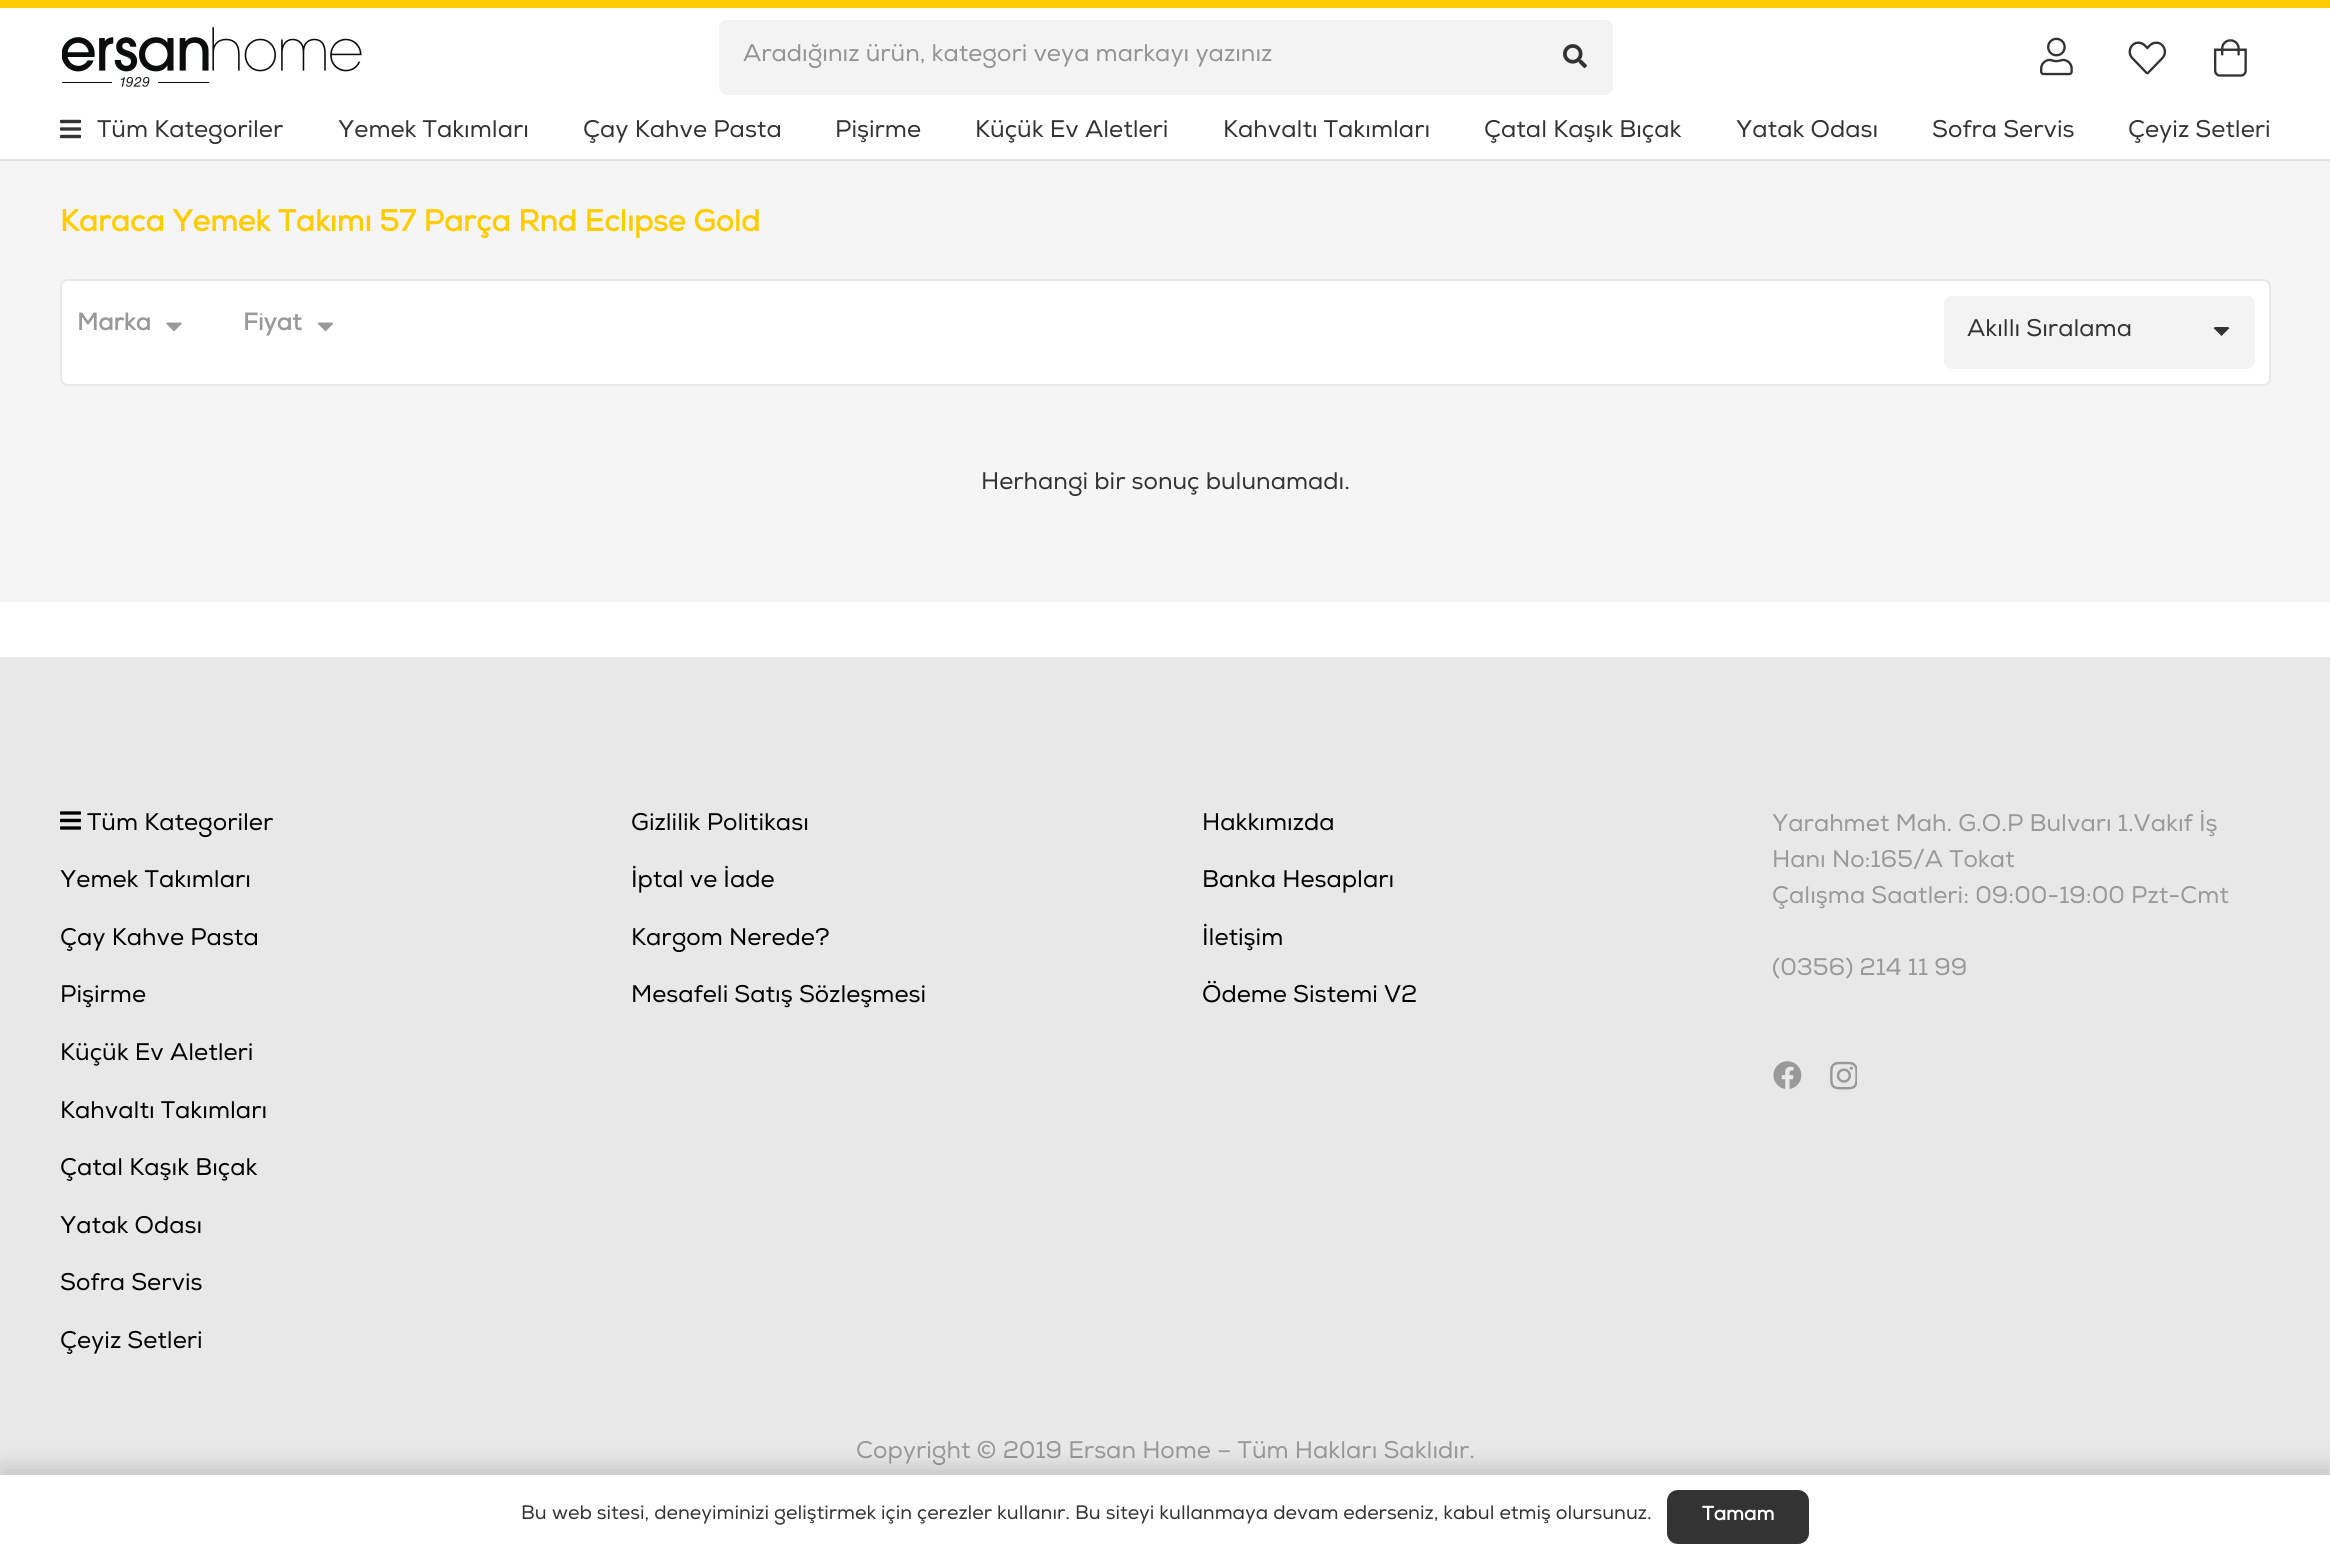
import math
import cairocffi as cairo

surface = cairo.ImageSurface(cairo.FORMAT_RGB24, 2330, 1558)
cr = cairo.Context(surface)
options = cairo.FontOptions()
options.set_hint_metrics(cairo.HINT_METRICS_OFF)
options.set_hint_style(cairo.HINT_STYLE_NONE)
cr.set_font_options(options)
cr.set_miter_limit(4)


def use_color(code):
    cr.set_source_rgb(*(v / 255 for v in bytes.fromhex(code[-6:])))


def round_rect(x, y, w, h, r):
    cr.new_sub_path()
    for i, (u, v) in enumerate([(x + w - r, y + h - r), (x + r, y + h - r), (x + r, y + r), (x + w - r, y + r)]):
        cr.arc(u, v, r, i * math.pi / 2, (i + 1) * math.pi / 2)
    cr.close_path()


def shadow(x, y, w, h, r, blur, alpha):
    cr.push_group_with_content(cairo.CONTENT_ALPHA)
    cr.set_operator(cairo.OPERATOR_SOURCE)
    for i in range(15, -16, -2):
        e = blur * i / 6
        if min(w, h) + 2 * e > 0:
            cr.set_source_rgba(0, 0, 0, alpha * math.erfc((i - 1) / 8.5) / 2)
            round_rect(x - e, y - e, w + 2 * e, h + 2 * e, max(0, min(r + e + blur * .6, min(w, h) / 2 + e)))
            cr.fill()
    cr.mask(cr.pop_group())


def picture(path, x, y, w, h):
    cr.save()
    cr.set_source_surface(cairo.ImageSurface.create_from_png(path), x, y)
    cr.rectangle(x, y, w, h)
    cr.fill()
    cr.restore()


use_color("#ffffff")
cr.paint()
use_color("#ffcc00")
cr.rectangle(0, 0, 2330, 8)
cr.fill()
picture("img1.png", 62, 27, 300, 60)
use_color("#f3f3f3")
round_rect(721.5, 22.5, 889, 70, 5.5)
cr.fill_preserve()
cr.set_line_width(5)
cr.stroke()
cr.select_font_face("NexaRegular")
cr.set_font_size(24)
use_color("#939393")
cr.move_to(743, 61)
cr.show_text("Aradığınız ürün, kategori veya markayı yazınız")
picture("img2.png", 1563, 44, 24, 25)
picture("img3.png", 2040, 37, 33, 39)
picture("img4.png", 2128, 41, 39, 34)
picture("img5.png", 2214, 39, 33, 38)
use_color("#e1e1e1")
cr.rectangle(0, 159, 2330, 2)
cr.fill()
picture("img6.png", 60, 119, 21, 20)
use_color("#333333")
cr.move_to(97, 137)
cr.show_text("Tüm Kategoriler")
cr.move_to(338, 137)
cr.show_text("Yemek Takımları")
cr.move_to(583, 137)
cr.show_text("Çay Kahve Pasta")
cr.move_to(835, 137)
cr.show_text("Pişirme")
cr.move_to(975, 137)
cr.show_text("Küçük Ev Aletleri")
cr.move_to(1223, 137)
cr.show_text("Kahvaltı Takımları")
cr.move_to(1484, 137)
cr.show_text("Çatal Kaşık Bıçak")
cr.move_to(1736, 137)
cr.show_text("Yatak Odası")
cr.move_to(1932, 137)
cr.show_text("Sofra Servis")
cr.move_to(2128, 137)
cr.show_text("Çeyiz Setleri")
use_color("#f5f5f5")
cr.rectangle(0, 161, 2330, 441)
cr.fill()
cr.select_font_face("NexaRegular", cairo.FONT_SLANT_NORMAL, cairo.FONT_WEIGHT_BOLD)
cr.set_font_size(30)
use_color("#ffcc00")
cr.move_to(60, 231)
cr.show_text("Karaca Yemek Takımı 57 Parça Rnd Eclıpse Gold")
use_color("#ffffff")
round_rect(61, 280, 2209, 105, 7)
cr.fill_preserve()
use_color("#e8e8e8")
cr.set_line_width(2)
cr.stroke()
cr.set_font_size(24)
use_color("#999999")
cr.move_to(77, 330)
cr.show_text("Marka")
cr.new_path()
cr.move_to(168, 322.5)
cr.curve_to(167, 322.5, 166.5, 323, 166, 323.5)
cr.line_to(174, 331.5)
cr.line_to(182, 323.5)
cr.curve_to(181.5, 323, 181, 322.5, 180, 322.5)
cr.close_path()
cr.fill()
cr.move_to(243, 330)
cr.show_text("Fiyat")
cr.new_path()
cr.move_to(319.5, 322.5)
cr.curve_to(319, 322.5, 318, 323, 317.5, 323.5)
cr.line_to(325.5, 331.5)
cr.line_to(333.5, 323.5)
cr.curve_to(333, 323, 332, 322.5, 331.5, 322.5)
cr.close_path()
cr.fill()
use_color("#f3f3f3")
round_rect(1946.5, 298.5, 306, 68, 5.5)
cr.fill_preserve()
cr.set_line_width(5)
cr.stroke()
cr.select_font_face("NexaRegular")
use_color("#333333")
cr.move_to(1967, 336)
cr.show_text("Akıllı Sıralama")
cr.new_path()
cr.move_to(2215.5, 327)
cr.curve_to(2215, 327, 2214, 327.5, 2213.5, 328)
cr.line_to(2221.5, 336)
cr.line_to(2229.5, 328)
cr.curve_to(2229, 327.5, 2228, 327, 2227.5, 327)
cr.close_path()
cr.fill()
cr.move_to(981, 489)
cr.show_text("Herhangi bir sonuç bulunamadı.")
use_color("#e8e8e8")
cr.rectangle(0, 657, 2330, 818)
cr.fill()
picture("img7.png", 60, 811, 21, 19)
use_color("#000000")
cr.move_to(87, 830)
cr.show_text("Tüm Kategoriler")
cr.move_to(60, 887)
cr.show_text("Yemek Takımları")
cr.move_to(60, 945)
cr.show_text("Çay Kahve Pasta")
cr.move_to(60, 1002)
cr.show_text("Pişirme")
cr.move_to(60, 1060)
cr.show_text("Küçük Ev Aletleri")
cr.move_to(60, 1118)
cr.show_text("Kahvaltı Takımları")
cr.move_to(60, 1175)
cr.show_text("Çatal Kaşık Bıçak")
cr.move_to(60, 1233)
cr.show_text("Yatak Odası")
cr.move_to(60, 1290)
cr.show_text("Sofra Servis")
cr.move_to(60, 1348)
cr.show_text("Çeyiz Setleri")
cr.move_to(631, 830)
cr.show_text("Gizlilik Politikası")
cr.move_to(631, 887)
cr.show_text("İptal ve İade")
cr.move_to(631, 945)
cr.show_text("Kargom Nerede?")
cr.move_to(631, 1002)
cr.show_text("Mesafeli Satış Sözleşmesi")
cr.move_to(1202, 830)
cr.show_text("Hakkımızda")
cr.move_to(1202, 887)
cr.show_text("Banka Hesapları")
cr.move_to(1202, 945)
cr.show_text("İletişim")
cr.move_to(1202, 1002)
cr.show_text("Ödeme Sistemi V2")
use_color("#999999")
cr.move_to(1772, 831)
cr.show_text("Yarahmet Mah. G.O.P Bulvarı 1.Vakıf İş")
cr.move_to(1772, 867)
cr.show_text("Hanı No:165/A Tokat")
cr.move_to(1772, 903)
cr.show_text("Çalışma Saatleri: 09:00-19:00 Pzt-Cmt")
cr.move_to(1772, 975)
cr.show_text("(0356) 214 11 99")
picture("img8.png", 1773, 1061, 29, 28)
picture("img9.png", 1830, 1061, 27, 29)
cr.move_to(856, 1458)
cr.show_text("Copyright © 2019 Ersan Home – Tüm Hakları Saklıdır.")
use_color("#000000")
shadow(0, 1467, 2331, 84, 0, 11, 0.15)
use_color("#ffffff")
cr.rectangle(0, 1475, 2330, 83)
cr.fill()
cr.set_font_size(19.5)
use_color("#333333")
cr.move_to(521, 1519)
cr.show_text("Bu web sitesi, deneyiminizi geliştirmek için çerezler kullanır. Bu siteyi kullanmaya devam ederseniz, kabul etmiş olursunuz.")
round_rect(1667, 1490, 142, 54, 11)
cr.fill()
cr.select_font_face("NexaRegular", cairo.FONT_SLANT_NORMAL, cairo.FONT_WEIGHT_BOLD)
use_color("#ffffff")
cr.move_to(1702, 1520)
cr.show_text("Tamam")
surface.write_to_png("result.png")
